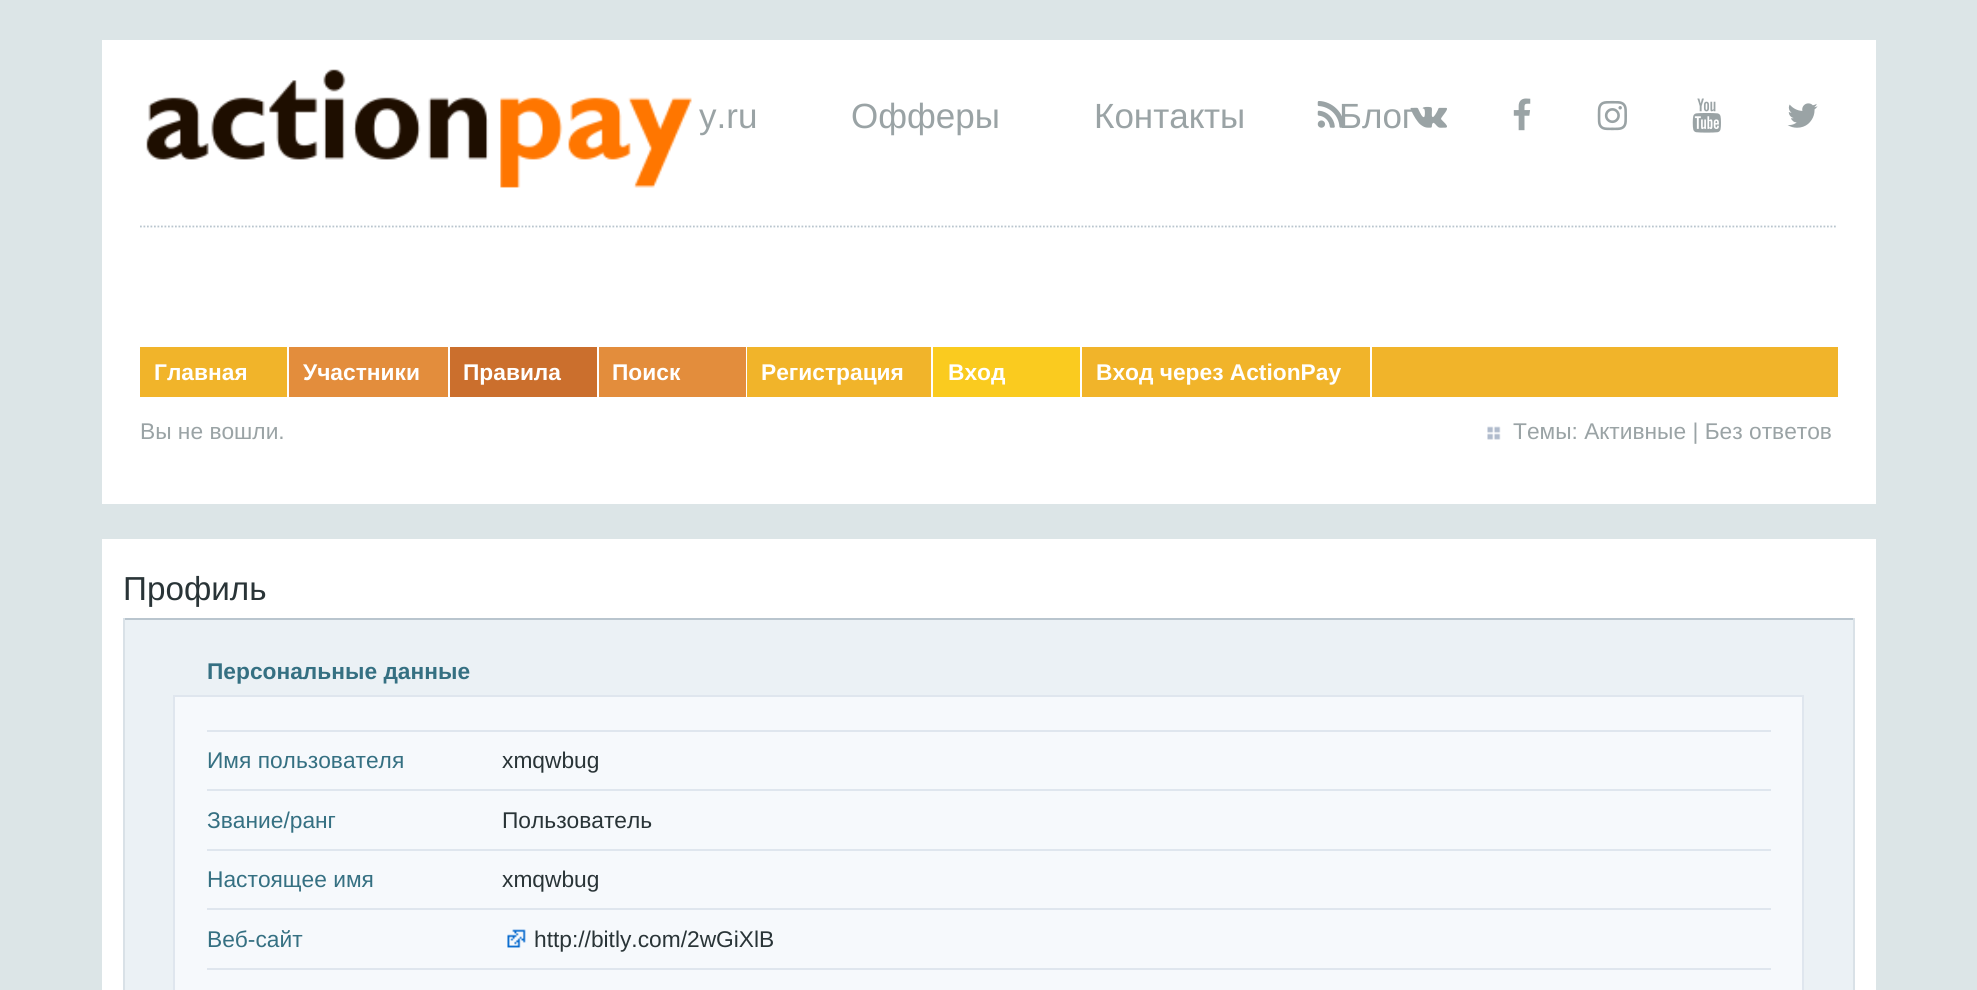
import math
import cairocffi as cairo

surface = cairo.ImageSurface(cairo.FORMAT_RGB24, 1977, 990)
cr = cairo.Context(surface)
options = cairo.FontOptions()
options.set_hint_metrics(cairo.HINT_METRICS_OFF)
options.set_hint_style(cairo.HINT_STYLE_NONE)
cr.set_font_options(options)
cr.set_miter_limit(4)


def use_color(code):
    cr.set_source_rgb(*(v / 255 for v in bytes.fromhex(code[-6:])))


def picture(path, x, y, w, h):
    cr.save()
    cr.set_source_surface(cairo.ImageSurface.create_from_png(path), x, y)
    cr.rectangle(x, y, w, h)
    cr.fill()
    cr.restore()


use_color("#dce5e7")
cr.paint()
use_color("#ffffff")
cr.rectangle(102, 40, 1774, 464)
cr.fill()
picture("img1.png", 146, 69, 546, 119)
cr.select_font_face("Liberation Sans")
cr.set_font_size(35)
use_color("#9aa3a5")
cr.move_to(699, 128)
cr.show_text("y.ru")
cr.move_to(851, 128)
cr.show_text("Офферы")
cr.move_to(1094, 128)
cr.show_text("Контакты")
cr.move_to(1339, 128)
cr.show_text("Блог")
picture("img2.png", 1317, 101, 25, 27)
picture("img3.png", 1410, 106, 37, 22)
picture("img4.png", 1513, 98, 18, 33)
picture("img5.png", 1597, 100, 30, 31)
picture("img6.png", 1692, 98, 29, 35)
picture("img7.png", 1787, 103, 31, 25)
cr.new_path()
cr.move_to(140, 226.5)
cr.line_to(1837.5, 226.5)
use_color("#b9c5ce")
cr.set_line_width(1.8)
cr.set_dash([1.75, 1.75])
cr.stroke()
use_color("#f1b42a")
cr.rectangle(140, 347, 1698, 50)
cr.fill()
use_color("#ffffff")
cr.rectangle(287, 347, 2, 50)
cr.fill()
cr.select_font_face("Liberation Sans", cairo.FONT_SLANT_NORMAL, cairo.FONT_WEIGHT_BOLD)
cr.set_font_size(22.75)
cr.move_to(154, 380)
cr.show_text("Главная")
use_color("#e38d3c")
cr.rectangle(289, 347, 159, 50)
cr.fill()
use_color("#ffffff")
cr.rectangle(448, 347, 2, 50)
cr.fill()
cr.move_to(303, 380)
cr.show_text("Участники")
use_color("#cb6f2d")
cr.rectangle(450, 347, 147, 50)
cr.fill()
use_color("#ffffff")
cr.rectangle(597, 347, 2, 50)
cr.fill()
cr.move_to(463, 380)
cr.show_text("Правила")
use_color("#e38d3c")
cr.rectangle(599, 347, 147, 50)
cr.fill()
use_color("#ffffff")
cr.rectangle(746, 347, 1, 50)
cr.fill()
cr.move_to(612, 380)
cr.show_text("Поиск")
cr.rectangle(931, 347, 2, 50)
cr.fill()
cr.move_to(761, 380)
cr.show_text("Регистрация")
use_color("#facb1f")
cr.rectangle(933, 347, 147, 50)
cr.fill()
use_color("#ffffff")
cr.rectangle(1080, 347, 2, 50)
cr.fill()
cr.move_to(948, 380)
cr.show_text("Вход")
cr.rectangle(1370, 347, 2, 50)
cr.fill()
cr.move_to(1096, 380)
cr.show_text("Вход через ActionPay")
cr.select_font_face("Liberation Sans")
use_color("#9aa3a5")
cr.move_to(140, 439)
cr.show_text("Вы не вошли.")
picture("img8.png", 1487, 426, 14, 14)
cr.move_to(1513, 439)
cr.show_text("Темы: Активные | Без ответов")
use_color("#ffffff")
cr.rectangle(102, 539, 1774, 451)
cr.fill()
cr.set_font_size(33.25)
use_color("#293437")
cr.move_to(123, 600)
cr.show_text("Профиль")
use_color("#ebf1f5")
cr.rectangle(125, 620, 1728, 370)
cr.fill()
use_color("#b9c5ce")
cr.rectangle(123, 618, 1732, 2)
cr.fill()
use_color("#d9e1e7")
cr.rectangle(1853, 618, 2, 372)
cr.fill()
cr.rectangle(123, 618, 2, 372)
cr.fill()
cr.select_font_face("Liberation Sans", cairo.FONT_SLANT_NORMAL, cairo.FONT_WEIGHT_BOLD)
cr.set_font_size(22.75)
use_color("#357082")
cr.move_to(207, 679)
cr.show_text("Персональные данные")
use_color("#f6f9fc")
cr.rectangle(174, 696, 1629, 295)
cr.fill_preserve()
use_color("#dfe6ee")
cr.set_line_width(2)
cr.set_dash([])
cr.stroke()
cr.rectangle(207, 730, 1564, 2)
cr.fill()
cr.select_font_face("Liberation Sans")
use_color("#357082")
cr.move_to(207, 768)
cr.show_text("Имя пользователя")
use_color("#dfe6ee")
cr.rectangle(207, 789, 1564, 2)
cr.fill()
use_color("#293437")
cr.move_to(502, 768)
cr.show_text("xmqwbug")
use_color("#357082")
cr.move_to(207, 828)
cr.show_text("Звание/ранг")
use_color("#dfe6ee")
cr.rectangle(207, 849, 1564, 2)
cr.fill()
use_color("#293437")
cr.move_to(502, 828)
cr.show_text("Пользователь")
use_color("#357082")
cr.move_to(207, 887)
cr.show_text("Настоящее имя")
use_color("#dfe6ee")
cr.rectangle(207, 908, 1564, 2)
cr.fill()
use_color("#293437")
cr.move_to(502, 887)
cr.show_text("xmqwbug")
use_color("#357082")
cr.move_to(207, 947)
cr.show_text("Веб-сайт")
use_color("#dfe6ee")
cr.rectangle(207, 968, 1564, 2)
cr.fill()
picture("img9.png", 507, 929, 19, 19)
use_color("#293437")
cr.move_to(534, 947)
cr.show_text("http://bitly.com/2wGiXlB")
surface.write_to_png("result.png")
